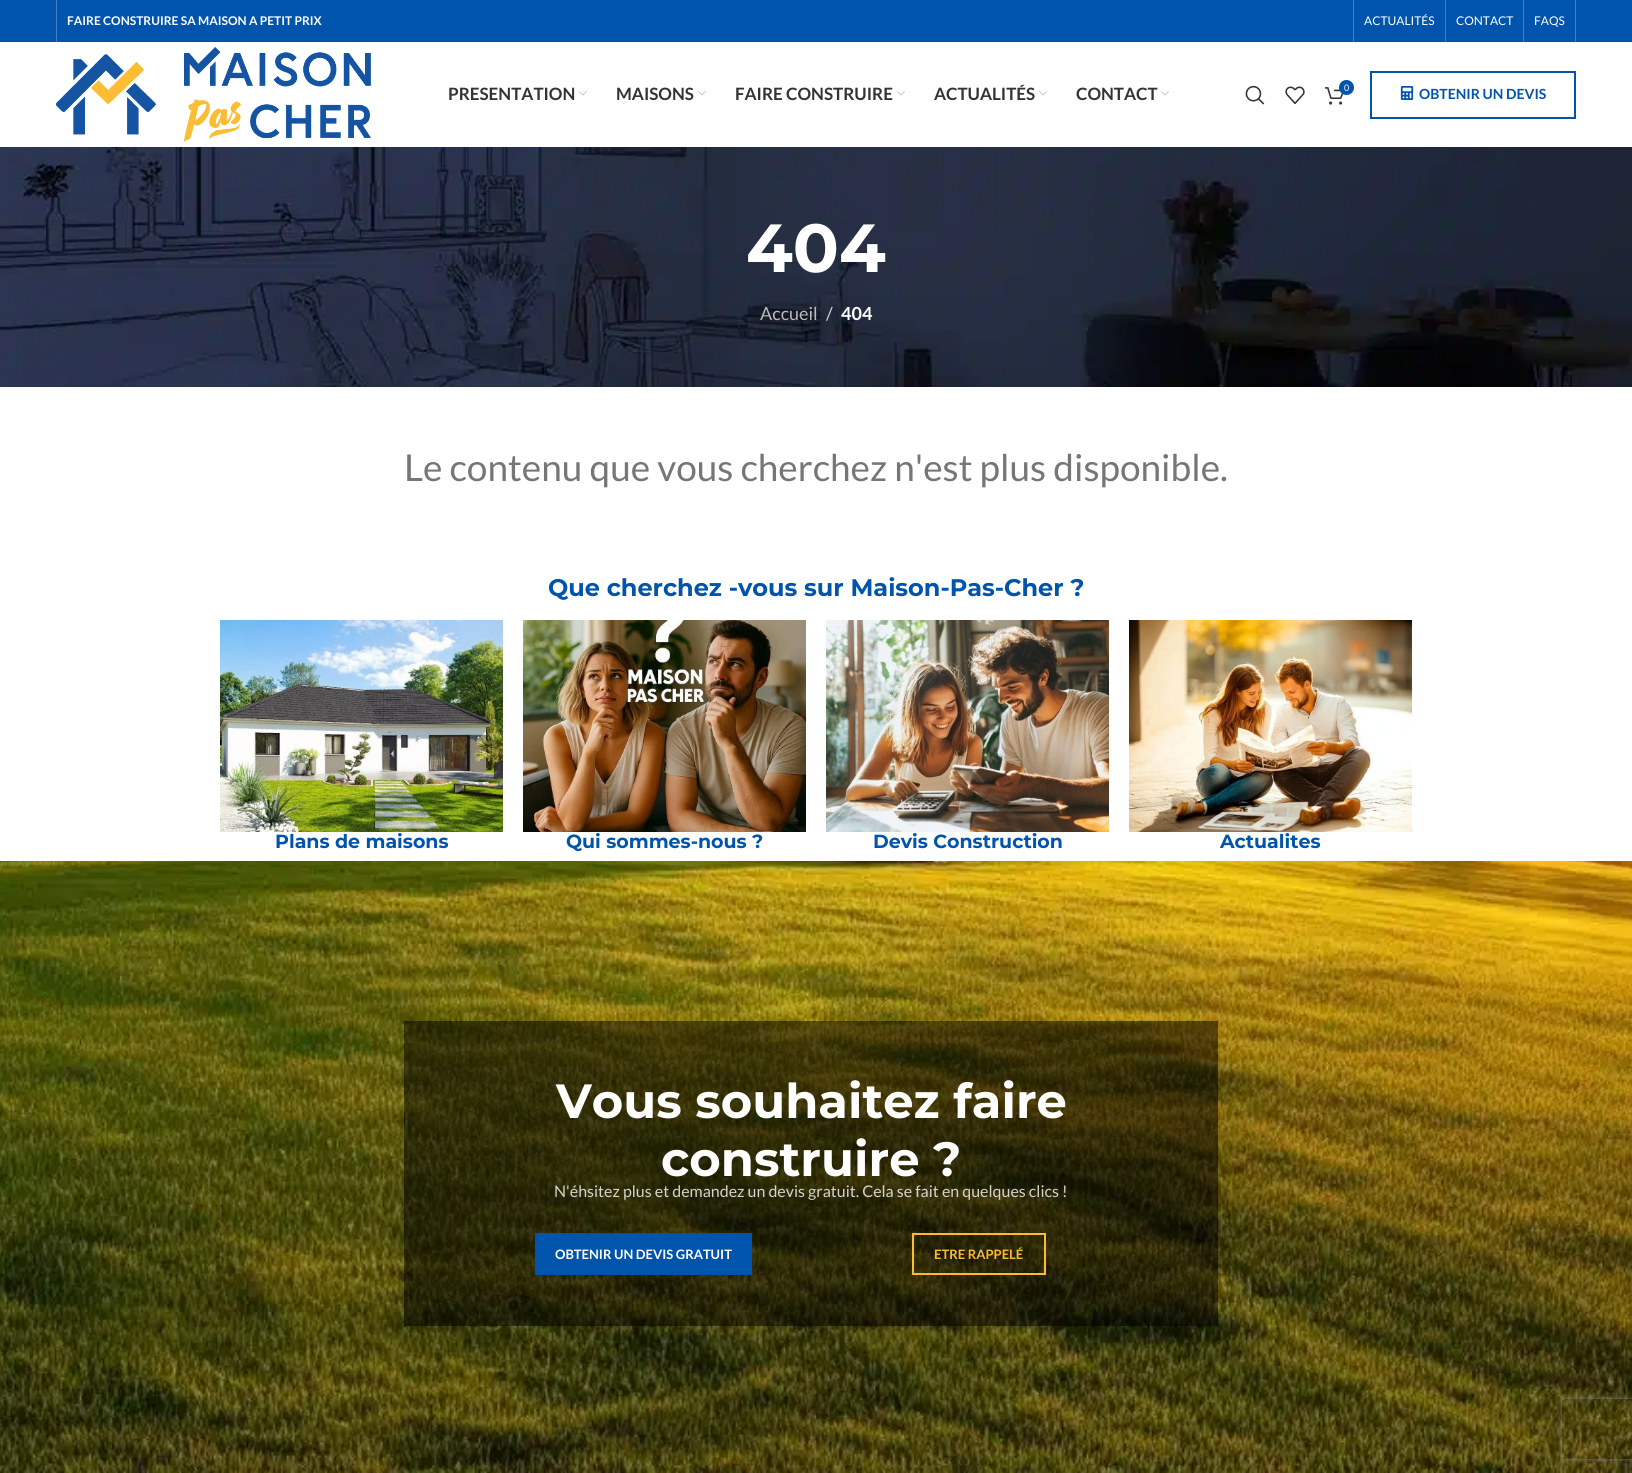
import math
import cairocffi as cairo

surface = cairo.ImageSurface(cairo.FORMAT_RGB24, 1632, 1473)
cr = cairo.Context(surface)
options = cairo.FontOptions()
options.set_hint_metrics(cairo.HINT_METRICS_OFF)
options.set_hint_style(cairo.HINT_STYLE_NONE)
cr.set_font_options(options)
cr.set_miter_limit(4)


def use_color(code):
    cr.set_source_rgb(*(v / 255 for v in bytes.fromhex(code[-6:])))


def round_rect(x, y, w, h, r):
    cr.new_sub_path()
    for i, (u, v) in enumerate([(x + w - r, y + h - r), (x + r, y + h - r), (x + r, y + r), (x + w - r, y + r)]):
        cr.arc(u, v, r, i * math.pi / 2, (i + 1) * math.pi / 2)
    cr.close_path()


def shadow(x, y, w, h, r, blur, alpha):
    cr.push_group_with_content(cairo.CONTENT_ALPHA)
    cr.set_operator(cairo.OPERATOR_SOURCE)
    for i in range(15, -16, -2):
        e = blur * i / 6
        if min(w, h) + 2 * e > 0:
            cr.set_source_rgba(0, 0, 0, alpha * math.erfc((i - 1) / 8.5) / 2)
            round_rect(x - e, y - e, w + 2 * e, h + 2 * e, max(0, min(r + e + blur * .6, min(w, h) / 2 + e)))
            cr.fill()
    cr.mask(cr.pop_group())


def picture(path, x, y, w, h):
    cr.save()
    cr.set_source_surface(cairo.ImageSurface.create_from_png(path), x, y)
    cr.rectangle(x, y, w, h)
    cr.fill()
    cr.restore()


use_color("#ffffff")
cr.paint()
use_color("#0054ac")
cr.rectangle(0, 0, 1632, 42)
cr.fill()
use_color("#407fc1")
cr.rectangle(56, 0, 1, 42)
cr.fill()
cr.select_font_face("Lato", cairo.FONT_SLANT_NORMAL, cairo.FONT_WEIGHT_BOLD)
cr.set_font_size(12)
use_color("#ffffff")
cr.move_to(67, 25)
cr.show_text("FAIRE CONSTRUIRE SA MAISON A PETIT PRIX")
use_color("#407fc1")
cr.rectangle(1353, 0, 1, 42)
cr.fill()
cr.select_font_face("Lato")
use_color("#ffffff")
cr.move_to(1364, 25)
cr.show_text("ACTUALITÉS")
use_color("#407fc1")
cr.rectangle(1445, 0, 1, 42)
cr.fill()
use_color("#ffffff")
cr.move_to(1456, 25)
cr.show_text("CONTACT")
use_color("#407fc1")
cr.rectangle(1523, 0, 1, 42)
cr.fill()
use_color("#ffffff")
cr.move_to(1534, 25)
cr.show_text("FAQS")
use_color("#407fc1")
cr.rectangle(1575, 0, 1, 42)
cr.fill()
picture("img1.png", 56, 47, 315, 95)
cr.select_font_face("Lato", cairo.FONT_SLANT_NORMAL, cairo.FONT_WEIGHT_BOLD)
cr.set_font_size(17)
use_color("#333333")
cr.move_to(448, 100)
cr.show_text("PRESENTATION")
picture("img2.png", 579, 91, 8, 5)
cr.move_to(616, 100)
cr.show_text("MAISONS")
picture("img2.png", 698, 91, 8, 5)
cr.move_to(735, 100)
cr.show_text("FAIRE CONSTRUIRE")
picture("img2.png", 897, 91, 8, 5)
cr.move_to(934, 100)
cr.show_text("ACTUALITÉS")
picture("img2.png", 1039, 91, 8, 5)
cr.move_to(1076, 100)
cr.show_text("CONTACT")
picture("img2.png", 1161, 91, 8, 5)
picture("img3.png", 1245, 85, 20, 20)
picture("img4.png", 1285, 86, 20, 18)
picture("img5.png", 1325, 87, 19, 18)
use_color("#0054ac")
cr.arc(1346.5, 87.5, 7.5, 0, 2 * math.pi)
cr.fill()
cr.select_font_face("Lato")
cr.set_font_size(9)
use_color("#ffffff")
cr.move_to(1344, 91)
cr.show_text("0")
cr.rectangle(1371, 72, 204, 46)
use_color("#0054ac")
cr.stroke()
picture("img6.png", 1400, 86, 14, 14)
cr.select_font_face("Lato", cairo.FONT_SLANT_NORMAL, cairo.FONT_WEIGHT_BOLD)
cr.set_font_size(14)
cr.move_to(1419, 99)
cr.show_text("OBTENIR UN DEVIS")
picture("img7.png", 0, 147, 1632, 240)
cr.select_font_face("Montserrat", cairo.FONT_SLANT_NORMAL, cairo.FONT_WEIGHT_BOLD)
cr.set_font_size(68)
use_color("#ffffff")
cr.move_to(746, 272)
cr.show_text("404")
cr.select_font_face("Lato")
cr.set_font_size(18)
use_color("#b9babe")
cr.move_to(760, 320)
cr.show_text("Accueil")
use_color("#d3d4d8")
cr.move_to(826, 320)
cr.show_text("/")
cr.select_font_face("Lato", cairo.FONT_SLANT_NORMAL, cairo.FONT_WEIGHT_BOLD)
use_color("#ffffff")
cr.move_to(841, 320)
cr.show_text("404")
cr.select_font_face("Lato")
cr.set_font_size(37)
use_color("#767676")
cr.move_to(404, 481)
cr.show_text("Le contenu que vous cherchez n'est plus disponible.")
cr.select_font_face("Montserrat", cairo.FONT_SLANT_NORMAL, cairo.FONT_WEIGHT_BOLD)
cr.set_font_size(24)
use_color("#0054ac")
cr.move_to(548, 596)
cr.show_text("Que cherchez -vous sur Maison-Pas-Cher ?")
picture("img8.png", 220, 620, 283, 212)
cr.set_font_size(19)
cr.move_to(275, 848)
cr.show_text("Plans de maisons")
picture("img9.png", 523, 620, 283, 212)
cr.move_to(566, 848)
cr.show_text("Qui sommes-nous ?")
picture("img10.png", 826, 620, 283, 212)
cr.move_to(873, 848)
cr.show_text("Devis Construction")
picture("img11.png", 1129, 620, 283, 212)
cr.move_to(1220, 848)
cr.show_text("Actualites")
picture("img12.png", 0, 861, 1632, 612)
cr.set_source_rgba(0, 0, 0, 0.5)
cr.rectangle(404, 1021, 814, 305)
cr.fill()
cr.set_font_size(48)
use_color("#ffffff")
cr.move_to(556, 1118)
cr.show_text("Vous souhaitez faire")
cr.move_to(661, 1176)
cr.show_text("construire ?")
cr.select_font_face("Lato")
cr.set_font_size(16)
use_color("#d5d4cd")
cr.move_to(554, 1197)
cr.show_text("N'éhsitez plus et demandez un devis gratuit. Cela se fait en quelques clics !")
use_color("#0054ac")
cr.rectangle(535, 1233, 217, 42)
cr.fill()
cr.select_font_face("Lato", cairo.FONT_SLANT_NORMAL, cairo.FONT_WEIGHT_BOLD)
cr.set_font_size(13)
use_color("#ffffff")
cr.move_to(555, 1259)
cr.show_text("OBTENIR UN DEVIS GRATUIT")
cr.rectangle(913, 1234, 132, 40)
use_color("#fbbc34")
cr.stroke()
cr.move_to(934, 1259)
cr.show_text("ETRE RAPPELÉ")
cr.save()
cr.set_fill_rule(cairo.FILL_RULE_EVEN_ODD)
cr.new_path()
cr.move_to(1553, 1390)
cr.line_to(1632, 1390)
cr.line_to(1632, 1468)
cr.line_to(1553, 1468)
cr.close_path()
cr.move_to(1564, 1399)
cr.line_to(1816, 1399)
cr.curve_to(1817, 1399, 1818, 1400, 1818, 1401)
cr.line_to(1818, 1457)
cr.curve_to(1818, 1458, 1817, 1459, 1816, 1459)
cr.line_to(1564, 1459)
cr.curve_to(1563, 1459, 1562, 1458, 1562, 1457)
cr.line_to(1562, 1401)
cr.curve_to(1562, 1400, 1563, 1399, 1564, 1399)
cr.close_path()
cr.clip()
use_color("#808080")
shadow(1562, 1399, 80, 60, 2, 2.5, 1)
cr.restore()
surface.write_to_png("result.png")
